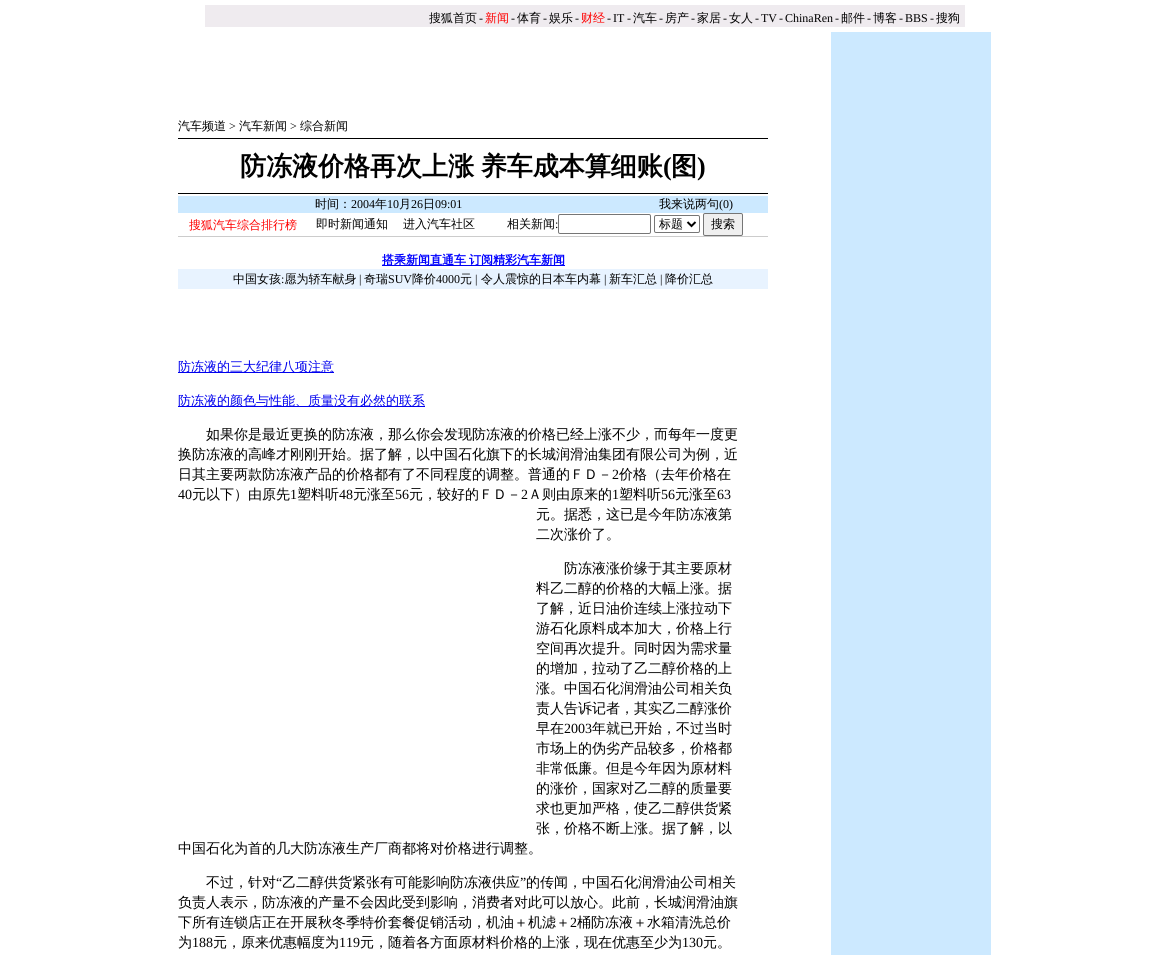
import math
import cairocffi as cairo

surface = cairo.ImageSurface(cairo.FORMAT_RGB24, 1169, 955)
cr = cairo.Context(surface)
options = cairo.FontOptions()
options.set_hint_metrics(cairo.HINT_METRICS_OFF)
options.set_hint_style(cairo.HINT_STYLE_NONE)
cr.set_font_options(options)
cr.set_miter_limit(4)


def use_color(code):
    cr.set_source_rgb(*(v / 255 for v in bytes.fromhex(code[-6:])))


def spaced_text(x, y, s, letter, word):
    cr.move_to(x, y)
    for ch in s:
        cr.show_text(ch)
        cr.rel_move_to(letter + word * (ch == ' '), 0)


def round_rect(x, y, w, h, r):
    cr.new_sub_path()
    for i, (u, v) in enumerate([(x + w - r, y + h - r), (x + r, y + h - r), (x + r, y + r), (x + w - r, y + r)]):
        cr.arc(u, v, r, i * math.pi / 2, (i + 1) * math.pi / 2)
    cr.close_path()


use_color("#ffffff")
cr.paint()
use_color("#efebef")
cr.rectangle(205, 5, 760, 22)
cr.fill()
cr.select_font_face("WenQuanYi Zen Hei Medium")
cr.set_font_size(12)
use_color("#000000")
cr.move_to(429, 22)
cr.show_text("搜狐首页")
cr.select_font_face("Liberation Serif")
cr.move_to(479, 22)
cr.show_text("-")
cr.select_font_face("WenQuanYi Zen Hei Medium")
use_color("#ff0000")
cr.move_to(485, 22)
cr.show_text("新闻")
cr.select_font_face("Liberation Serif")
use_color("#000000")
cr.move_to(511, 22)
cr.show_text("-")
cr.select_font_face("WenQuanYi Zen Hei Medium")
cr.move_to(517, 22)
cr.show_text("体育")
cr.select_font_face("Liberation Serif")
cr.move_to(543, 22)
cr.show_text("-")
cr.select_font_face("WenQuanYi Zen Hei Medium")
cr.move_to(549, 22)
cr.show_text("娱乐")
cr.select_font_face("Liberation Serif")
cr.move_to(575, 22)
cr.show_text("-")
cr.select_font_face("WenQuanYi Zen Hei Medium")
use_color("#ff0000")
cr.move_to(581, 22)
cr.show_text("财经")
cr.select_font_face("Liberation Serif")
use_color("#000000")
cr.move_to(607, 22)
cr.show_text("-")
cr.move_to(613, 22)
cr.show_text("IT")
cr.move_to(627, 22)
cr.show_text("-")
cr.select_font_face("WenQuanYi Zen Hei Medium")
cr.move_to(633, 22)
cr.show_text("汽车")
cr.select_font_face("Liberation Serif")
cr.move_to(659, 22)
cr.show_text("-")
cr.select_font_face("WenQuanYi Zen Hei Medium")
cr.move_to(665, 22)
cr.show_text("房产")
cr.select_font_face("Liberation Serif")
cr.move_to(691, 22)
cr.show_text("-")
cr.select_font_face("WenQuanYi Zen Hei Medium")
cr.move_to(697, 22)
cr.show_text("家居")
cr.select_font_face("Liberation Serif")
cr.move_to(723, 22)
cr.show_text("-")
cr.select_font_face("WenQuanYi Zen Hei Medium")
cr.move_to(729, 22)
cr.show_text("女人")
cr.select_font_face("Liberation Serif")
cr.move_to(755, 22)
cr.show_text("-")
cr.move_to(761, 22)
cr.show_text("TV")
cr.move_to(779, 22)
cr.show_text("-")
cr.move_to(785, 22)
cr.show_text("ChinaRen")
cr.move_to(835, 22)
cr.show_text("-")
cr.select_font_face("WenQuanYi Zen Hei Medium")
cr.move_to(841, 22)
cr.show_text("邮件")
cr.select_font_face("Liberation Serif")
cr.move_to(867, 22)
cr.show_text("-")
cr.select_font_face("WenQuanYi Zen Hei Medium")
cr.move_to(873, 22)
cr.show_text("博客")
cr.select_font_face("Liberation Serif")
cr.move_to(899, 22)
cr.show_text("-")
cr.move_to(905, 22)
cr.show_text("BBS")
cr.move_to(930, 22)
cr.show_text("-")
cr.select_font_face("WenQuanYi Zen Hei Medium")
cr.move_to(936, 22)
cr.show_text("搜狗")
cr.move_to(178, 130)
cr.show_text("汽车频道")
cr.select_font_face("Liberation Serif")
cr.move_to(229, 130)
cr.show_text(">")
cr.select_font_face("WenQuanYi Zen Hei Medium")
cr.move_to(239, 130)
cr.show_text("汽车新闻")
cr.select_font_face("Liberation Serif")
cr.move_to(290, 130)
cr.show_text(">")
cr.select_font_face("WenQuanYi Zen Hei Medium")
cr.move_to(300, 130)
cr.show_text("综合新闻")
cr.rectangle(178, 138, 590, 1)
cr.fill()
cr.select_font_face("WenQuanYi Zen Hei", cairo.FONT_SLANT_NORMAL, cairo.FONT_WEIGHT_BOLD)
cr.set_font_size(26)
spaced_text(240, 175, "防冻液价格再次上涨 养车成本算细账", 0, -1)
cr.select_font_face("Liberation Serif", cairo.FONT_SLANT_NORMAL, cairo.FONT_WEIGHT_BOLD)
cr.move_to(663, 175)
cr.show_text("(")
cr.select_font_face("WenQuanYi Zen Hei", cairo.FONT_SLANT_NORMAL, cairo.FONT_WEIGHT_BOLD)
cr.move_to(671, 175)
cr.show_text("图")
cr.select_font_face("Liberation Serif", cairo.FONT_SLANT_NORMAL, cairo.FONT_WEIGHT_BOLD)
cr.move_to(697, 175)
cr.show_text(")")
cr.rectangle(178, 193, 590, 1)
cr.fill()
use_color("#cce9ff")
cr.rectangle(178, 196, 590, 17)
cr.fill()
cr.select_font_face("WenQuanYi Zen Hei Medium")
cr.set_font_size(12)
use_color("#000000")
cr.move_to(315, 208)
cr.show_text("时间：")
cr.select_font_face("Liberation Serif")
cr.move_to(351, 208)
cr.show_text("2004")
cr.select_font_face("WenQuanYi Zen Hei Medium")
cr.move_to(375, 208)
cr.show_text("年")
cr.select_font_face("Liberation Serif")
cr.move_to(387, 208)
cr.show_text("10")
cr.select_font_face("WenQuanYi Zen Hei Medium")
cr.move_to(399, 208)
cr.show_text("月")
cr.select_font_face("Liberation Serif")
cr.move_to(411, 208)
cr.show_text("26")
cr.select_font_face("WenQuanYi Zen Hei Medium")
cr.move_to(423, 208)
cr.show_text("日")
cr.select_font_face("Liberation Serif")
cr.move_to(435, 208)
cr.show_text("09:01")
cr.select_font_face("WenQuanYi Zen Hei Medium")
cr.move_to(659, 208)
cr.show_text("我来说两句")
cr.select_font_face("Liberation Serif")
cr.move_to(719, 208)
cr.show_text("(0)")
cr.select_font_face("WenQuanYi Zen Hei Medium")
use_color("#ff0000")
cr.move_to(189, 229)
cr.show_text("搜狐汽车综合排行榜")
use_color("#000000")
cr.move_to(316, 228)
cr.show_text("即时新闻通知")
cr.move_to(403, 228)
cr.show_text("进入汽车社区")
cr.move_to(507, 228)
cr.show_text("相关新闻")
cr.select_font_face("Liberation Serif")
cr.move_to(555, 228)
cr.show_text(":")
round_rect(558.5, 214.5, 92, 19, 1.5)
use_color("#767676")
cr.set_line_width(1)
cr.stroke()
round_rect(654.5, 215.5, 45, 17, 1.5)
cr.stroke()
cr.new_path()
cr.move_to(687.5, 222)
cr.line_to(691.5, 226)
cr.line_to(695.5, 222)
use_color("#000000")
cr.set_line_width(2)
cr.stroke()
cr.select_font_face("WenQuanYi Zen Hei Medium")
cr.move_to(659, 228)
cr.show_text("标题")
use_color("#efefef")
round_rect(703.5, 213.5, 39, 22, 1.5)
cr.fill_preserve()
use_color("#767676")
cr.set_line_width(1)
cr.stroke()
use_color("#000000")
cr.move_to(711, 228)
cr.show_text("搜索")
use_color("#cccccc")
cr.rectangle(178, 236, 590, 1)
cr.fill()
use_color("#0000ee")
cr.rectangle(382, 265, 183, 1)
cr.fill()
cr.select_font_face("WenQuanYi Zen Hei", cairo.FONT_SLANT_NORMAL, cairo.FONT_WEIGHT_BOLD)
use_color("#0000ff")
cr.move_to(382, 264)
cr.show_text("搭乘新闻直通车")
cr.move_to(469, 264)
cr.show_text("订阅精彩汽车新闻")
use_color("#e8f3ff")
cr.rectangle(178, 269, 590, 20)
cr.fill()
cr.select_font_face("WenQuanYi Zen Hei Medium")
use_color("#000000")
cr.move_to(233, 283)
cr.show_text("中国女孩 愿为轿车献身")
cr.select_font_face("Liberation Serif")
cr.move_to(359, 283)
cr.show_text("|")
cr.select_font_face("WenQuanYi Zen Hei Medium")
cr.move_to(364, 283)
cr.show_text("奇瑞")
cr.select_font_face("Liberation Serif")
cr.move_to(388, 283)
cr.show_text("SUV")
cr.select_font_face("WenQuanYi Zen Hei Medium")
cr.move_to(412, 283)
cr.show_text("降价")
cr.select_font_face("Liberation Serif")
cr.move_to(436, 283)
cr.show_text("4000")
cr.select_font_face("WenQuanYi Zen Hei Medium")
cr.move_to(460, 283)
cr.show_text("元")
cr.select_font_face("Liberation Serif")
cr.move_to(475, 283)
cr.show_text("|")
cr.select_font_face("WenQuanYi Zen Hei Medium")
cr.move_to(481, 283)
cr.show_text("令人震惊的日本车内幕")
cr.select_font_face("Liberation Serif")
cr.move_to(604, 283)
cr.show_text("|")
cr.select_font_face("WenQuanYi Zen Hei Medium")
cr.move_to(609, 283)
cr.show_text("新车汇总")
cr.select_font_face("Liberation Serif")
cr.move_to(660, 283)
cr.show_text("|")
cr.select_font_face("WenQuanYi Zen Hei Medium")
cr.move_to(665, 283)
cr.show_text("降价汇总")
cr.select_font_face("Liberation Serif")
cr.move_to(281, 283)
cr.show_text(":")
use_color("#0000ee")
cr.rectangle(178, 372, 156, 1)
cr.fill()
cr.select_font_face("WenQuanYi Zen Hei Medium")
cr.set_font_size(13)
cr.move_to(178, 371)
cr.show_text("防冻液的三大纪律八项注意")
cr.rectangle(178, 406, 247, 1)
cr.fill()
cr.move_to(178, 405)
cr.show_text("防冻液的颜色与性能、质量没有必然的联系")
cr.set_font_size(14)
use_color("#000000")
cr.move_to(206, 439)
cr.show_text("如果你是最近更换的防冻液，那么你会发现防冻液的价格已经上涨不少，而每年一度更")
cr.move_to(178, 459)
cr.show_text("换防冻液的高峰才刚刚开始。据了解，以中国石化旗下的长城润滑油集团有限公司为例，近")
cr.move_to(178, 479)
cr.show_text("日其主要两款防冻液产品的价格都有了不同程度的调整。普通的ＦＤ－")
cr.select_font_face("Liberation Serif")
cr.move_to(612, 479)
cr.show_text("2")
cr.select_font_face("WenQuanYi Zen Hei Medium")
cr.move_to(619, 479)
cr.show_text("价格（去年价格在")
cr.select_font_face("Liberation Serif")
cr.move_to(178, 499)
cr.show_text("40")
cr.select_font_face("WenQuanYi Zen Hei Medium")
cr.move_to(192, 499)
cr.show_text("元以下）由原先")
cr.select_font_face("Liberation Serif")
cr.move_to(290, 499)
cr.show_text("1")
cr.select_font_face("WenQuanYi Zen Hei Medium")
cr.move_to(297, 499)
cr.show_text("塑料听")
cr.select_font_face("Liberation Serif")
cr.move_to(339, 499)
cr.show_text("48")
cr.select_font_face("WenQuanYi Zen Hei Medium")
cr.move_to(353, 499)
cr.show_text("元涨至")
cr.select_font_face("Liberation Serif")
cr.move_to(395, 499)
cr.show_text("56")
cr.select_font_face("WenQuanYi Zen Hei Medium")
cr.move_to(409, 499)
cr.show_text("元，较好的ＦＤ－")
cr.select_font_face("Liberation Serif")
cr.move_to(521, 499)
cr.show_text("2")
cr.select_font_face("WenQuanYi Zen Hei Medium")
cr.move_to(528, 499)
cr.show_text("Ａ则由原来的")
cr.select_font_face("Liberation Serif")
cr.move_to(612, 499)
cr.show_text("1")
cr.select_font_face("WenQuanYi Zen Hei Medium")
cr.move_to(619, 499)
cr.show_text("塑料听")
cr.select_font_face("Liberation Serif")
cr.move_to(661, 499)
cr.show_text("56")
cr.select_font_face("WenQuanYi Zen Hei Medium")
cr.move_to(675, 499)
cr.show_text("元涨至")
cr.select_font_face("Liberation Serif")
cr.move_to(717, 499)
cr.show_text("63")
cr.select_font_face("WenQuanYi Zen Hei Medium")
cr.move_to(536, 519)
cr.show_text("元。据悉，这已是今年防冻液第")
cr.move_to(536, 539)
cr.show_text("二次涨价了。")
cr.move_to(564, 573)
cr.show_text("防冻液涨价缘于其主要原材")
cr.move_to(536, 593)
cr.show_text("料乙二醇的价格的大幅上涨。据")
cr.move_to(536, 613)
cr.show_text("了解，近日油价连续上涨拉动下")
cr.move_to(536, 633)
cr.show_text("游石化原料成本加大，价格上行")
cr.move_to(536, 653)
cr.show_text("空间再次提升。同时因为需求量")
cr.move_to(536, 673)
cr.show_text("的增加，拉动了乙二醇价格的上")
cr.move_to(536, 693)
cr.show_text("涨。中国石化润滑油公司相关负")
cr.move_to(536, 713)
cr.show_text("责人告诉记者，其实乙二醇涨价")
cr.move_to(536, 733)
cr.show_text("早在")
cr.select_font_face("Liberation Serif")
cr.move_to(564, 733)
cr.show_text("2003")
cr.select_font_face("WenQuanYi Zen Hei Medium")
cr.move_to(592, 733)
cr.show_text("年就已开始，不过当时")
cr.move_to(536, 753)
cr.show_text("市场上的伪劣产品较多，价格都")
cr.move_to(536, 773)
cr.show_text("非常低廉。但是今年因为原材料")
cr.move_to(536, 793)
cr.show_text("的涨价，国家对乙二醇的质量要")
cr.move_to(536, 813)
cr.show_text("求也更加严格，使乙二醇供货紧")
cr.move_to(536, 833)
cr.show_text("张，价格不断上涨。据了解，以")
cr.move_to(178, 853)
cr.show_text("中国石化为首的几大防冻液生产厂商都将对价格进行调整。")
cr.move_to(206, 887)
cr.show_text("不过，针对")
cr.select_font_face("Liberation Serif")
cr.move_to(276, 887)
cr.show_text("“")
cr.select_font_face("WenQuanYi Zen Hei Medium")
cr.move_to(282, 887)
cr.show_text("乙二醇供货紧张有可能影响防冻液供应")
cr.select_font_face("Liberation Serif")
cr.move_to(520, 887)
cr.show_text("”")
cr.select_font_face("WenQuanYi Zen Hei Medium")
cr.move_to(526, 887)
cr.show_text("的传闻，中国石化润滑油公司相关")
cr.move_to(178, 907)
cr.show_text("负责人表示，防冻液的产量不会因此受到影响，消费者对此可以放心。此前，长城润滑油旗")
cr.move_to(178, 927)
cr.show_text("下所有连锁店正在开展秋冬季特价套餐促销活动，机油＋机滤＋")
cr.select_font_face("Liberation Serif")
cr.move_to(570, 927)
cr.show_text("2")
cr.select_font_face("WenQuanYi Zen Hei Medium")
cr.move_to(577, 927)
cr.show_text("桶防冻液＋水箱清洗总价")
cr.move_to(178, 947)
cr.show_text("为")
cr.select_font_face("Liberation Serif")
cr.move_to(192, 947)
cr.show_text("188")
cr.select_font_face("WenQuanYi Zen Hei Medium")
cr.move_to(213, 947)
cr.show_text("元，原来优惠幅度为")
cr.select_font_face("Liberation Serif")
cr.move_to(339, 947)
cr.show_text("119")
cr.select_font_face("WenQuanYi Zen Hei Medium")
cr.move_to(360, 947)
cr.show_text("元，随着各方面原材料价格的上涨，现在优惠至少为")
cr.select_font_face("Liberation Serif")
cr.move_to(682, 947)
cr.show_text("130")
cr.select_font_face("WenQuanYi Zen Hei Medium")
cr.move_to(703, 947)
cr.show_text("元。")
use_color("#cce9ff")
cr.rectangle(831, 32, 160, 923)
cr.fill()
surface.write_to_png("result.png")
